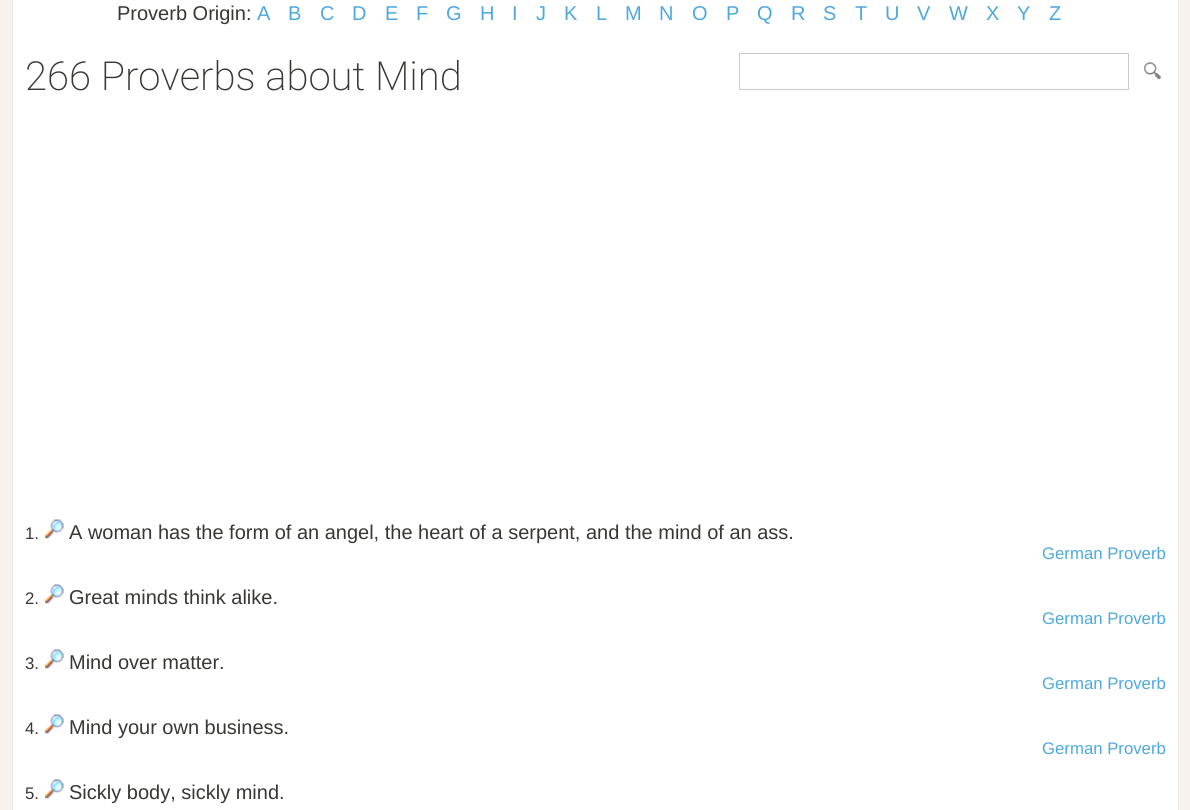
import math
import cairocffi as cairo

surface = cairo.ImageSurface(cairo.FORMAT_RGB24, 1190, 810)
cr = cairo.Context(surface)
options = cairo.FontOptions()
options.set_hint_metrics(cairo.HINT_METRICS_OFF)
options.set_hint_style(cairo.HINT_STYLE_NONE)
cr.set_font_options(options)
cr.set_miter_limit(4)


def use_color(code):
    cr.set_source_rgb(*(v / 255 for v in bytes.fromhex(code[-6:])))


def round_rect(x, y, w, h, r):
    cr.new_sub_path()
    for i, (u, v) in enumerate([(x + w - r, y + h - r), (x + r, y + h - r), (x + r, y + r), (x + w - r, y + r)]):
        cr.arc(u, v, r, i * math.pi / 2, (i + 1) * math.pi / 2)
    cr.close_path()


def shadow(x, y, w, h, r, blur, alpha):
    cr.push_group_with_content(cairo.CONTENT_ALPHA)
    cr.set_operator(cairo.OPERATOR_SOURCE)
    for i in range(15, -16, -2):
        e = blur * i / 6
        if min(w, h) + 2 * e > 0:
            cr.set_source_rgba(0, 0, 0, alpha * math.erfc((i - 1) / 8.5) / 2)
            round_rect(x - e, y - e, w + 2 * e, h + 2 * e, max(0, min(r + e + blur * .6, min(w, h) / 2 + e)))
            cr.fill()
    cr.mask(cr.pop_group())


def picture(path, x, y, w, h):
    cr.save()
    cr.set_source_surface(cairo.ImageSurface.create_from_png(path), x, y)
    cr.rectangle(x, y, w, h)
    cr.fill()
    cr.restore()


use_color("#f7f2ee")
cr.paint()
use_color("#cccccc")
shadow(13, -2, 1165, 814, 0, 0.5, 1)
use_color("#ffffff")
cr.rectangle(13, 0, 1165, 810)
cr.fill()
cr.select_font_face("Liberation Sans")
cr.set_font_size(20)
use_color("#393733")
cr.move_to(117, 20)
cr.show_text("Proverb Origin:")
use_color("#4ea8de")
cr.move_to(257, 20)
cr.show_text("A")
cr.move_to(288, 20)
cr.show_text("B")
cr.move_to(320, 20)
cr.show_text("C")
cr.move_to(352, 20)
cr.show_text("D")
cr.move_to(385, 20)
cr.show_text("E")
cr.move_to(416, 20)
cr.show_text("F")
cr.move_to(446, 20)
cr.show_text("G")
cr.move_to(480, 20)
cr.show_text("H")
cr.move_to(512, 20)
cr.show_text("I")
cr.move_to(536, 20)
cr.show_text("J")
cr.move_to(564, 20)
cr.show_text("K")
cr.move_to(596, 20)
cr.show_text("L")
cr.move_to(625, 20)
cr.show_text("M")
cr.move_to(659, 20)
cr.show_text("N")
cr.move_to(692, 20)
cr.show_text("O")
cr.move_to(726, 20)
cr.show_text("P")
cr.move_to(757, 20)
cr.show_text("Q")
cr.move_to(791, 20)
cr.show_text("R")
cr.move_to(823, 20)
cr.show_text("S")
cr.move_to(855, 20)
cr.show_text("T")
cr.move_to(885, 20)
cr.show_text("U")
cr.move_to(917, 20)
cr.show_text("V")
cr.move_to(949, 20)
cr.show_text("W")
cr.move_to(986, 20)
cr.show_text("X")
cr.move_to(1017, 20)
cr.show_text("Y")
cr.move_to(1049, 20)
cr.show_text("Z")
cr.select_font_face("Roboto ExtraLight")
cr.set_font_size(40)
use_color("#393733")
cr.move_to(25, 90)
cr.show_text("266 Proverbs about Mind")
cr.rectangle(739.5, 53.5, 389, 36)
use_color("#cccccc")
cr.set_line_width(1)
cr.stroke()
picture("img1.png", 1144, 62, 17, 18)
cr.select_font_face("Liberation Sans")
cr.set_font_size(16.75)
use_color("#393733")
cr.move_to(25, 539)
cr.show_text("1.")
picture("img2.png", 45, 519, 19, 20)
cr.set_font_size(20)
cr.move_to(69, 539)
cr.show_text("A woman has the form of an angel, the heart of a serpent, and the mind of an ass.")
cr.set_font_size(16.75)
use_color("#4ea8de")
cr.move_to(1042, 559)
cr.show_text("German Proverb")
use_color("#393733")
cr.move_to(25, 604)
cr.show_text("2.")
picture("img2.png", 45, 584, 19, 20)
cr.set_font_size(20)
cr.move_to(69, 604)
cr.show_text("Great minds think alike.")
cr.set_font_size(16.75)
use_color("#4ea8de")
cr.move_to(1042, 624)
cr.show_text("German Proverb")
use_color("#393733")
cr.move_to(25, 669)
cr.show_text("3.")
picture("img2.png", 45, 649, 19, 20)
cr.set_font_size(20)
cr.move_to(69, 669)
cr.show_text("Mind over matter.")
cr.set_font_size(16.75)
use_color("#4ea8de")
cr.move_to(1042, 689)
cr.show_text("German Proverb")
use_color("#393733")
cr.move_to(25, 734)
cr.show_text("4.")
picture("img2.png", 45, 714, 19, 20)
cr.set_font_size(20)
cr.move_to(69, 734)
cr.show_text("Mind your own business.")
cr.set_font_size(16.75)
use_color("#4ea8de")
cr.move_to(1042, 754)
cr.show_text("German Proverb")
use_color("#393733")
cr.move_to(25, 799)
cr.show_text("5.")
picture("img2.png", 45, 779, 19, 20)
cr.set_font_size(20)
cr.move_to(69, 799)
cr.show_text("Sickly body, sickly mind.")
surface.write_to_png("result.png")
